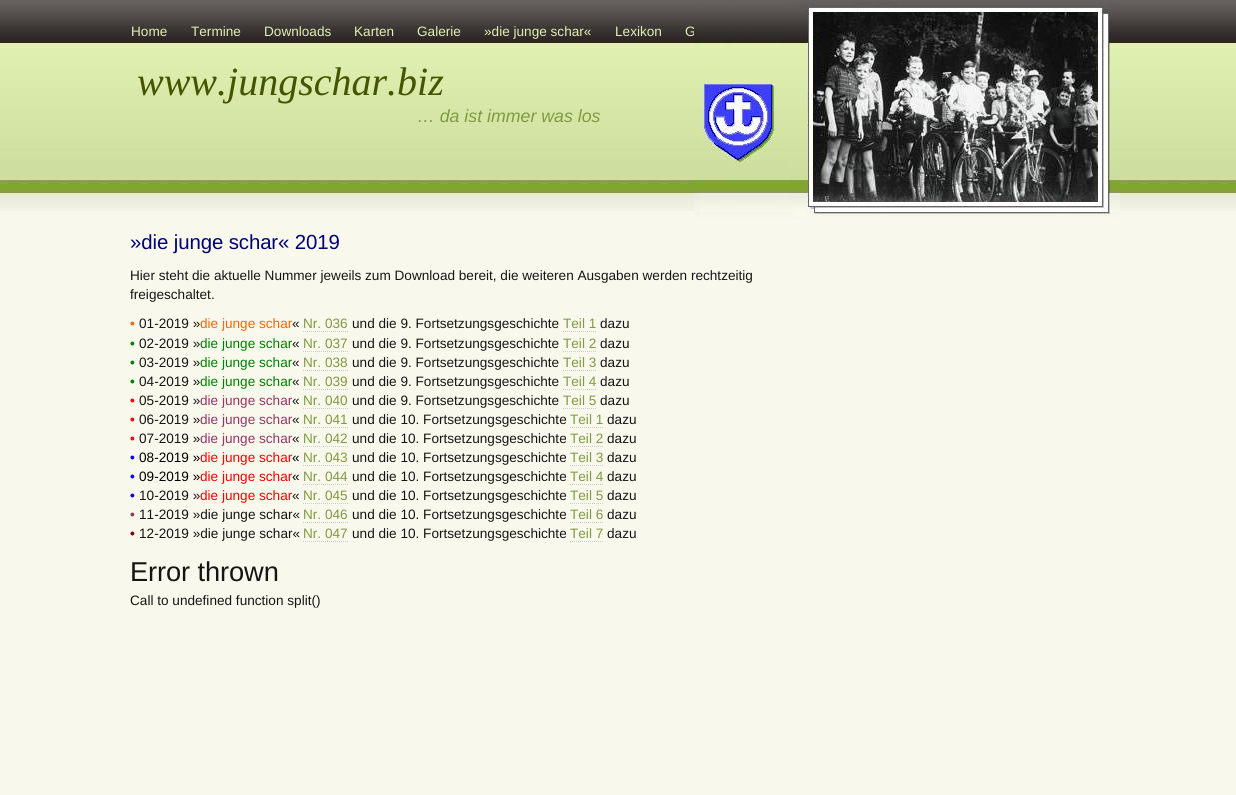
import math
import cairocffi as cairo

surface = cairo.ImageSurface(cairo.FORMAT_RGB24, 1236, 795)
cr = cairo.Context(surface)
options = cairo.FontOptions()
options.set_hint_metrics(cairo.HINT_METRICS_OFF)
options.set_hint_style(cairo.HINT_STYLE_NONE)
cr.set_font_options(options)
cr.set_miter_limit(4)


def use_color(code):
    cr.set_source_rgb(*(v / 255 for v in bytes.fromhex(code[-6:])))


def spaced_text(x, y, s, letter, word):
    cr.move_to(x, y)
    for ch in s:
        cr.show_text(ch)
        cr.rel_move_to(letter + word * (ch == ' '), 0)


def picture(path, x, y, w, h):
    cr.save()
    cr.set_source_surface(cairo.ImageSurface.create_from_png(path), x, y)
    cr.rectangle(x, y, w, h)
    cr.fill()
    cr.restore()


use_color("#f8f8ec")
cr.paint()
picture("img1.png", 0, 0, 1236, 211)
cr.select_font_face("Liberation Sans")
cr.set_font_size(13.6)
use_color("#e0efb3")
cr.move_to(131, 36)
cr.show_text("Home")
cr.move_to(191, 36)
cr.show_text("Termine")
cr.move_to(264, 36)
cr.show_text("Downloads")
cr.move_to(354, 36)
cr.show_text("Karten")
cr.move_to(417, 36)
cr.show_text("Galerie")
cr.move_to(484, 36)
cr.show_text("»die junge schar«")
cr.move_to(615, 36)
cr.show_text("Lexikon")
cr.move_to(685, 36)
cr.show_text("G")
picture("img2.png", 694, 2, 426, 219)
cr.select_font_face("Liberation Serif", cairo.FONT_SLANT_ITALIC)
cr.set_font_size(40)
use_color("#445500")
cr.move_to(137, 95)
cr.show_text("www.jungschar.biz")
cr.select_font_face("Liberation Sans", cairo.FONT_SLANT_ITALIC)
cr.set_font_size(17.75)
use_color("#7f9a42")
cr.move_to(417, 122)
cr.show_text("… da ist immer was los")
cr.select_font_face("Liberation Sans")
cr.set_font_size(20.4)
use_color("#000077")
spaced_text(130, 249, "»die junge schar« 2019", -0.1, 0)
cr.set_font_size(13.6)
use_color("#151515")
cr.move_to(130, 280)
cr.show_text("Hier steht die aktuelle Nummer jeweils zum Download bereit, die weiteren Ausgaben werden rechtzeitig")
cr.move_to(130, 299)
cr.show_text("freigeschaltet.")
cr.select_font_face("Liberation Sans", cairo.FONT_SLANT_NORMAL, cairo.FONT_WEIGHT_BOLD)
use_color("#ff6600")
cr.move_to(130, 328)
cr.show_text("•")
cr.select_font_face("Liberation Sans")
use_color("#151515")
cr.move_to(139, 328)
cr.show_text("01-2019 »")
use_color("#ff6600")
cr.move_to(200, 328)
cr.show_text("die junge schar")
use_color("#151515")
cr.move_to(292, 328)
cr.show_text("«")
use_color("#7f9a42")
cr.move_to(303, 328)
cr.show_text("Nr. 036")
cr.new_path()
cr.move_to(303, 331.5)
cr.line_to(348, 331.5)
use_color("#cccccc")
cr.set_line_width(1)
cr.set_dash([1, 1])
cr.stroke()
use_color("#151515")
cr.move_to(352, 328)
cr.show_text("und die 9. Fortsetzungsgeschichte")
use_color("#7f9a42")
cr.move_to(563, 328)
cr.show_text("Teil 1")
cr.new_path()
cr.move_to(563, 331.5)
cr.line_to(596, 331.5)
use_color("#cccccc")
cr.stroke()
use_color("#151515")
cr.move_to(600, 328)
cr.show_text("dazu")
cr.select_font_face("Liberation Sans", cairo.FONT_SLANT_NORMAL, cairo.FONT_WEIGHT_BOLD)
use_color("#008000")
cr.move_to(130, 348)
cr.show_text("•")
cr.select_font_face("Liberation Sans")
use_color("#151515")
cr.move_to(139, 348)
cr.show_text("02-2019 »")
use_color("#008000")
cr.move_to(200, 348)
cr.show_text("die junge schar")
use_color("#151515")
cr.move_to(292, 348)
cr.show_text("«")
use_color("#7f9a42")
cr.move_to(303, 348)
cr.show_text("Nr. 037")
cr.new_path()
cr.move_to(303, 351.5)
cr.line_to(348, 351.5)
use_color("#cccccc")
cr.stroke()
use_color("#151515")
cr.move_to(352, 348)
cr.show_text("und die 9. Fortsetzungsgeschichte")
use_color("#7f9a42")
cr.move_to(563, 348)
cr.show_text("Teil 2")
cr.new_path()
cr.move_to(563, 351.5)
cr.line_to(596, 351.5)
use_color("#cccccc")
cr.stroke()
use_color("#151515")
cr.move_to(600, 348)
cr.show_text("dazu")
cr.select_font_face("Liberation Sans", cairo.FONT_SLANT_NORMAL, cairo.FONT_WEIGHT_BOLD)
use_color("#008000")
cr.move_to(130, 367)
cr.show_text("•")
cr.select_font_face("Liberation Sans")
use_color("#151515")
cr.move_to(139, 367)
cr.show_text("03-2019 »")
use_color("#008000")
cr.move_to(200, 367)
cr.show_text("die junge schar")
use_color("#151515")
cr.move_to(292, 367)
cr.show_text("«")
use_color("#7f9a42")
cr.move_to(303, 367)
cr.show_text("Nr. 038")
cr.new_path()
cr.move_to(303, 370.5)
cr.line_to(348, 370.5)
use_color("#cccccc")
cr.stroke()
use_color("#151515")
cr.move_to(352, 367)
cr.show_text("und die 9. Fortsetzungsgeschichte")
use_color("#7f9a42")
cr.move_to(563, 367)
cr.show_text("Teil 3")
cr.new_path()
cr.move_to(563, 370.5)
cr.line_to(596, 370.5)
use_color("#cccccc")
cr.stroke()
use_color("#151515")
cr.move_to(600, 367)
cr.show_text("dazu")
cr.select_font_face("Liberation Sans", cairo.FONT_SLANT_NORMAL, cairo.FONT_WEIGHT_BOLD)
use_color("#008000")
cr.move_to(130, 386)
cr.show_text("•")
cr.select_font_face("Liberation Sans")
use_color("#151515")
cr.move_to(139, 386)
cr.show_text("04-2019 »")
use_color("#008000")
cr.move_to(200, 386)
cr.show_text("die junge schar")
use_color("#151515")
cr.move_to(292, 386)
cr.show_text("«")
use_color("#7f9a42")
cr.move_to(303, 386)
cr.show_text("Nr. 039")
cr.new_path()
cr.move_to(303, 389.5)
cr.line_to(348, 389.5)
use_color("#cccccc")
cr.stroke()
use_color("#151515")
cr.move_to(352, 386)
cr.show_text("und die 9. Fortsetzungsgeschichte")
use_color("#7f9a42")
cr.move_to(563, 386)
cr.show_text("Teil 4")
cr.new_path()
cr.move_to(563, 389.5)
cr.line_to(596, 389.5)
use_color("#cccccc")
cr.stroke()
use_color("#151515")
cr.move_to(600, 386)
cr.show_text("dazu")
cr.select_font_face("Liberation Sans", cairo.FONT_SLANT_NORMAL, cairo.FONT_WEIGHT_BOLD)
use_color("#ff0000")
cr.move_to(130, 405)
cr.show_text("•")
cr.select_font_face("Liberation Sans")
use_color("#151515")
cr.move_to(139, 405)
cr.show_text("05-2019 »")
use_color("#993366")
cr.move_to(200, 405)
cr.show_text("die junge schar")
use_color("#151515")
cr.move_to(292, 405)
cr.show_text("«")
use_color("#7f9a42")
cr.move_to(303, 405)
cr.show_text("Nr. 040")
cr.new_path()
cr.move_to(303, 408.5)
cr.line_to(348, 408.5)
use_color("#cccccc")
cr.stroke()
use_color("#151515")
cr.move_to(352, 405)
cr.show_text("und die 9. Fortsetzungsgeschichte")
use_color("#7f9a42")
cr.move_to(563, 405)
cr.show_text("Teil 5")
cr.new_path()
cr.move_to(563, 408.5)
cr.line_to(596, 408.5)
use_color("#cccccc")
cr.stroke()
use_color("#151515")
cr.move_to(600, 405)
cr.show_text("dazu")
cr.select_font_face("Liberation Sans", cairo.FONT_SLANT_NORMAL, cairo.FONT_WEIGHT_BOLD)
use_color("#ff0000")
cr.move_to(130, 424)
cr.show_text("•")
cr.select_font_face("Liberation Sans")
use_color("#151515")
cr.move_to(139, 424)
cr.show_text("06-2019 »")
use_color("#993366")
cr.move_to(200, 424)
cr.show_text("die junge schar")
use_color("#151515")
cr.move_to(292, 424)
cr.show_text("«")
use_color("#7f9a42")
cr.move_to(303, 424)
cr.show_text("Nr. 041")
cr.new_path()
cr.move_to(303, 427.5)
cr.line_to(348, 427.5)
use_color("#cccccc")
cr.stroke()
use_color("#151515")
cr.move_to(352, 424)
cr.show_text("und die 10. Fortsetzungsgeschichte")
use_color("#7f9a42")
cr.move_to(570, 424)
cr.show_text("Teil 1")
cr.new_path()
cr.move_to(570, 427.5)
cr.line_to(603, 427.5)
use_color("#cccccc")
cr.stroke()
use_color("#151515")
cr.move_to(607, 424)
cr.show_text("dazu")
cr.select_font_face("Liberation Sans", cairo.FONT_SLANT_NORMAL, cairo.FONT_WEIGHT_BOLD)
use_color("#ff0000")
cr.move_to(130, 443)
cr.show_text("•")
cr.select_font_face("Liberation Sans")
use_color("#151515")
cr.move_to(139, 443)
cr.show_text("07-2019 »")
use_color("#993366")
cr.move_to(200, 443)
cr.show_text("die junge schar")
use_color("#151515")
cr.move_to(292, 443)
cr.show_text("«")
use_color("#7f9a42")
cr.move_to(303, 443)
cr.show_text("Nr. 042")
cr.new_path()
cr.move_to(303, 446.5)
cr.line_to(348, 446.5)
use_color("#cccccc")
cr.stroke()
use_color("#151515")
cr.move_to(352, 443)
cr.show_text("und die 10. Fortsetzungsgeschichte")
use_color("#7f9a42")
cr.move_to(570, 443)
cr.show_text("Teil 2")
cr.new_path()
cr.move_to(570, 446.5)
cr.line_to(603, 446.5)
use_color("#cccccc")
cr.stroke()
use_color("#151515")
cr.move_to(607, 443)
cr.show_text("dazu")
cr.select_font_face("Liberation Sans", cairo.FONT_SLANT_NORMAL, cairo.FONT_WEIGHT_BOLD)
use_color("#0000ff")
cr.move_to(130, 462)
cr.show_text("•")
cr.select_font_face("Liberation Sans")
use_color("#000000")
cr.move_to(139, 462)
cr.show_text("08-2019 »")
use_color("#ff0000")
cr.move_to(200, 462)
cr.show_text("die junge schar")
use_color("#000000")
cr.move_to(292, 462)
cr.show_text("«")
use_color("#7f9a42")
cr.move_to(303, 462)
cr.show_text("Nr. 043")
cr.new_path()
cr.move_to(303, 465.5)
cr.line_to(348, 465.5)
use_color("#cccccc")
cr.stroke()
use_color("#151515")
cr.move_to(352, 462)
cr.show_text("und die 10. Fortsetzungsgeschichte")
use_color("#7f9a42")
cr.move_to(570, 462)
cr.show_text("Teil 3")
cr.new_path()
cr.move_to(570, 465.5)
cr.line_to(603, 465.5)
use_color("#cccccc")
cr.stroke()
use_color("#151515")
cr.move_to(607, 462)
cr.show_text("dazu")
cr.select_font_face("Liberation Sans", cairo.FONT_SLANT_NORMAL, cairo.FONT_WEIGHT_BOLD)
use_color("#0000ff")
cr.move_to(130, 481)
cr.show_text("•")
cr.select_font_face("Liberation Sans")
use_color("#000000")
cr.move_to(139, 481)
cr.show_text("09-2019 »")
use_color("#ff0000")
cr.move_to(200, 481)
cr.show_text("die junge schar")
use_color("#000000")
cr.move_to(292, 481)
cr.show_text("«")
use_color("#7f9a42")
cr.move_to(303, 481)
cr.show_text("Nr. 044")
cr.new_path()
cr.move_to(303, 484.5)
cr.line_to(348, 484.5)
use_color("#cccccc")
cr.stroke()
use_color("#151515")
cr.move_to(352, 481)
cr.show_text("und die 10. Fortsetzungsgeschichte")
use_color("#7f9a42")
cr.move_to(570, 481)
cr.show_text("Teil 4")
cr.new_path()
cr.move_to(570, 484.5)
cr.line_to(603, 484.5)
use_color("#cccccc")
cr.stroke()
use_color("#151515")
cr.move_to(607, 481)
cr.show_text("dazu")
cr.select_font_face("Liberation Sans", cairo.FONT_SLANT_NORMAL, cairo.FONT_WEIGHT_BOLD)
use_color("#0000ff")
cr.move_to(130, 500)
cr.show_text("•")
cr.select_font_face("Liberation Sans")
use_color("#151515")
cr.move_to(139, 500)
cr.show_text("10-2019 »")
use_color("#ff0000")
cr.move_to(200, 500)
cr.show_text("die junge schar")
use_color("#151515")
cr.move_to(292, 500)
cr.show_text("«")
use_color("#7f9a42")
cr.move_to(303, 500)
cr.show_text("Nr. 045")
cr.new_path()
cr.move_to(303, 503.5)
cr.line_to(348, 503.5)
use_color("#cccccc")
cr.stroke()
use_color("#151515")
cr.move_to(352, 500)
cr.show_text("und die 10. Fortsetzungsgeschichte")
use_color("#7f9a42")
cr.move_to(570, 500)
cr.show_text("Teil 5")
cr.new_path()
cr.move_to(570, 503.5)
cr.line_to(603, 503.5)
use_color("#cccccc")
cr.stroke()
use_color("#151515")
cr.move_to(607, 500)
cr.show_text("dazu")
cr.select_font_face("Liberation Sans", cairo.FONT_SLANT_NORMAL, cairo.FONT_WEIGHT_BOLD)
use_color("#993366")
cr.move_to(130, 519)
cr.show_text("•")
cr.select_font_face("Liberation Sans")
use_color("#151515")
cr.move_to(139, 519)
cr.show_text("11-2019 »die junge schar«")
use_color("#7f9a42")
cr.move_to(303, 519)
cr.show_text("Nr. 046")
cr.new_path()
cr.move_to(303, 522.5)
cr.line_to(348, 522.5)
use_color("#cccccc")
cr.stroke()
use_color("#151515")
cr.move_to(352, 519)
cr.show_text("und die 10. Fortsetzungsgeschichte")
use_color("#7f9a42")
cr.move_to(570, 519)
cr.show_text("Teil 6")
cr.new_path()
cr.move_to(570, 522.5)
cr.line_to(603, 522.5)
use_color("#cccccc")
cr.stroke()
use_color("#151515")
cr.move_to(607, 519)
cr.show_text("dazu")
cr.select_font_face("Liberation Sans", cairo.FONT_SLANT_NORMAL, cairo.FONT_WEIGHT_BOLD)
use_color("#800000")
cr.move_to(130, 538)
cr.show_text("•")
cr.select_font_face("Liberation Sans")
use_color("#151515")
cr.move_to(139, 538)
cr.show_text("12-2019 »die junge schar«")
use_color("#7f9a42")
cr.move_to(303, 538)
cr.show_text("Nr. 047")
cr.new_path()
cr.move_to(303, 541.5)
cr.line_to(348, 541.5)
use_color("#cccccc")
cr.stroke()
use_color("#151515")
cr.move_to(352, 538)
cr.show_text("und die 10. Fortsetzungsgeschichte")
use_color("#7f9a42")
cr.move_to(570, 538)
cr.show_text("Teil 7")
cr.new_path()
cr.move_to(570, 541.5)
cr.line_to(603, 541.5)
use_color("#cccccc")
cr.stroke()
use_color("#151515")
cr.move_to(607, 538)
cr.show_text("dazu")
cr.set_font_size(27.25)
spaced_text(130, 581, "Error thrown", -0.1, 0)
cr.set_font_size(13.6)
cr.move_to(130, 605)
cr.show_text("Call to undefined function split()")
surface.write_to_png("result.png")
